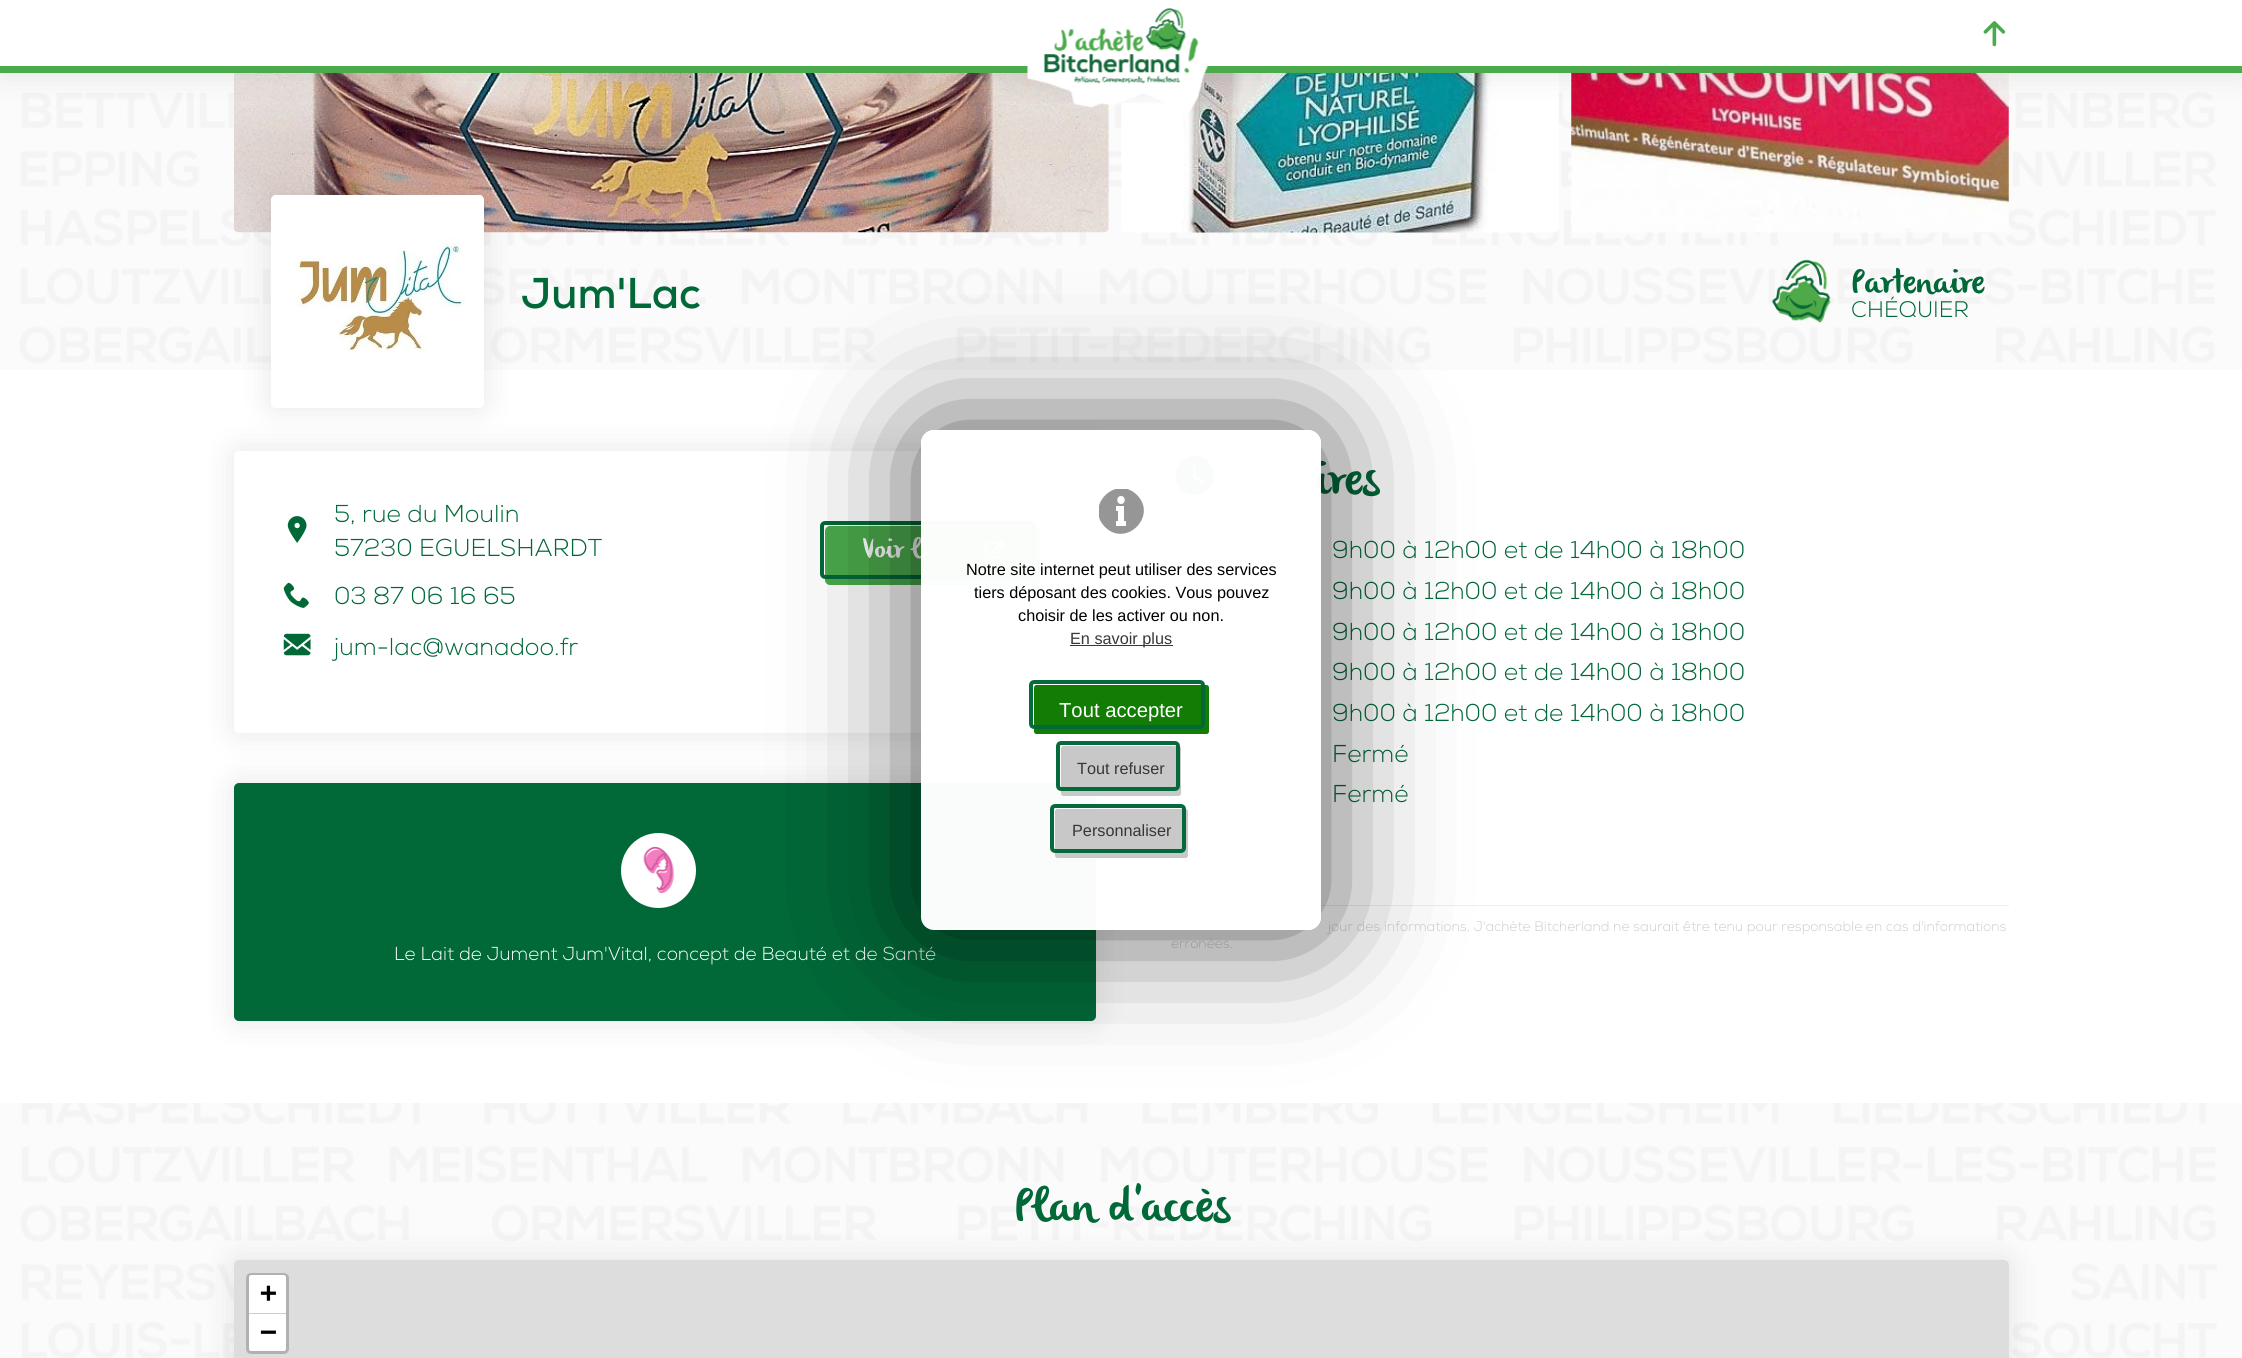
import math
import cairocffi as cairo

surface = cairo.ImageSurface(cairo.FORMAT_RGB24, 2242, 1358)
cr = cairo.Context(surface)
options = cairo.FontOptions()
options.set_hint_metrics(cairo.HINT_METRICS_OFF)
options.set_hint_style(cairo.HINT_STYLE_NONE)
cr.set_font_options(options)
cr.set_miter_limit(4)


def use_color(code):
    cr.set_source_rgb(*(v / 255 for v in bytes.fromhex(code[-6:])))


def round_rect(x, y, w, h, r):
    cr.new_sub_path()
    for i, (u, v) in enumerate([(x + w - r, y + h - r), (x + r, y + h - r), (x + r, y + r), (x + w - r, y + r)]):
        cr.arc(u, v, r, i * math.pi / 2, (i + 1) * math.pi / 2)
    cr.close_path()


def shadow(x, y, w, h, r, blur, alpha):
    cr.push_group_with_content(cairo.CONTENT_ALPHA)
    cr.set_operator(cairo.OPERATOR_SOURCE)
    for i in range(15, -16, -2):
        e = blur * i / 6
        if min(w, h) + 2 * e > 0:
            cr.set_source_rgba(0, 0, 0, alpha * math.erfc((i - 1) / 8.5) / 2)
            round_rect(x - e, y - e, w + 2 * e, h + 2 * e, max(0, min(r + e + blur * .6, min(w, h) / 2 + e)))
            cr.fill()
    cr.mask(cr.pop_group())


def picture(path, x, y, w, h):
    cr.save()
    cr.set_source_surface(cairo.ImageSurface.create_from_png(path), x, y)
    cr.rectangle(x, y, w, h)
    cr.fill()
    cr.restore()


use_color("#ffffff")
cr.paint()
picture("img1.png", 0, 73, 2242, 1285)
picture("img4.png", 234, 73, 875, 160)
picture("img5.png", 1121, 73, 438, 160)
gradient = cairo.RadialGradient(0, 0, 0, 0, 0, 1)
gradient.set_matrix(cairo.Matrix(1 / 469, 0, 0, 1 / 156, -1 * 1121 / 469, -1 * 60 / 156))
gradient.add_color_stop_rgba(0, 0, 0, 0, 0.1)
gradient.add_color_stop_rgba(0.35, 0, 0, 0, 0)
cr.set_source(gradient)
cr.rectangle(999, 73, 244, 30)
cr.fill()
picture("img6.png", 1571, 73, 438, 160)
use_color("#000000")
shadow(0, 0, 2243, 73, 0, 15.5, 0.1)
use_color("#ffffff")
cr.rectangle(0, 0, 2242, 66)
cr.fill()
use_color("#4bab4c")
cr.rectangle(0, 66, 2242, 7)
cr.fill()
picture("img2.png", 1027, 8, 181, 104)
picture("img3.png", 1983, 21, 23, 26)
use_color("#ffffff")
cr.rectangle(0, 370, 2242, 733)
cr.fill()
use_color("#000000")
shadow(271, 195, 213, 213, 5, 15.5, 0.1)
use_color("#ffffff")
round_rect(271, 195, 213, 213, 5)
cr.fill()
picture("img7.png", 271, 195, 213, 160)
cr.select_font_face("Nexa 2")
cr.set_font_size(43)
use_color("#016838")
cr.move_to(521, 308)
cr.show_text("Jum'Lac")
picture("img8.png", 1772, 259, 59, 64)
cr.select_font_face("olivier")
cr.set_font_size(34)
cr.move_to(1851, 293)
cr.show_text("Partenaire")
cr.select_font_face("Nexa")
cr.set_font_size(22.5)
cr.move_to(1851, 317)
cr.show_text("CHÉQUIER")
use_color("#000000")
shadow(234, 451, 862, 282, 5, 15.5, 0.1)
use_color("#ffffff")
round_rect(234, 451, 862, 282, 5)
cr.fill()
picture("img9.png", 287, 516, 20, 27)
cr.set_font_size(24.4)
use_color("#016838")
cr.move_to(334, 522)
cr.show_text("5, rue du Moulin")
cr.move_to(334, 556)
cr.show_text("57230 EGUELSHARDT")
picture("img10.png", 283, 582, 26, 26)
cr.move_to(334, 604)
cr.show_text("03 87 06 16 65")
picture("img11.png", 283, 633, 28, 23)
cr.move_to(334, 655)
cr.show_text("jum-lac@wanadoo.fr")
use_color("#4bab4c")
round_rect(825, 526, 215, 59, 5)
cr.fill()
picture("img12.png", 985, 541, 19, 17)
round_rect(822, 523, 212, 54, 3)
use_color("#016838")
cr.set_line_width(4)
cr.stroke()
cr.select_font_face("olivier")
cr.set_font_size(28)
use_color("#ffffff")
cr.move_to(862, 558)
cr.show_text("Voir l")
use_color("#000000")
shadow(234, 783, 862, 238, 5, 15.5, 0.1)
use_color("#016838")
round_rect(234, 783, 862, 238, 5)
cr.fill()
use_color("#ffffff")
cr.arc(658.5, 870.5, 37.5, 0, 2 * math.pi)
cr.fill()
picture("img13.png", 643, 846, 31, 48)
cr.select_font_face("Nexa")
cr.set_font_size(18.75)
cr.move_to(394, 960)
cr.show_text("Le Lait de Jument Jum'Vital, concept de Beauté et de Santé")
use_color("#016838")
cr.new_path()
cr.move_to(1203, 483.5)
cr.line_to(1204.5, 481)
cr.line_to(1195.5, 476)
cr.line_to(1195.5, 465.5)
cr.line_to(1193, 465.5)
cr.line_to(1193, 477.5)
cr.close_path()
cr.move_to(1194.5, 456)
cr.curve_to(1213, 456, 1221, 479, 1207, 490.5)
cr.curve_to(1203.5, 493.5, 1199, 495, 1194.5, 495)
cr.curve_to(1176.5, 495, 1168.5, 472, 1182.5, 460.5)
cr.curve_to(1186, 457.5, 1190, 456, 1194.5, 456)
cr.close_path()
cr.fill()
cr.select_font_face("olivier")
cr.set_font_size(47)
cr.move_to(1315, 494)
cr.show_text("ires")
cr.select_font_face("Nexa")
cr.set_font_size(24.4)
cr.move_to(1332, 558)
cr.show_text("9h00 à 12h00 et de 14h00 à 18h00")
cr.move_to(1332, 599)
cr.show_text("9h00 à 12h00 et de 14h00 à 18h00")
cr.move_to(1332, 640)
cr.show_text("9h00 à 12h00 et de 14h00 à 18h00")
cr.move_to(1332, 680)
cr.show_text("9h00 à 12h00 et de 14h00 à 18h00")
cr.move_to(1332, 721)
cr.show_text("9h00 à 12h00 et de 14h00 à 18h00")
cr.move_to(1332, 762)
cr.show_text("Fermé")
cr.move_to(1332, 802)
cr.show_text("Fermé")
use_color("#eeeeee")
cr.rectangle(1171, 905, 838, 1)
cr.fill()
cr.set_font_size(13.75)
use_color("#cccccc")
cr.move_to(1328, 931)
cr.show_text("jour des informations. J'achète Bitcherland ne saurait être tenu pour responsable en cas d'informations")
cr.move_to(1171, 948)
cr.show_text("erronées.")
cr.select_font_face("olivier")
cr.set_font_size(47)
use_color("#016838")
cr.move_to(1014, 1221)
cr.show_text("Plan d'accès")
use_color("#000000")
shadow(234, 1260, 1775, 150, 5, 15.5, 0.1)
use_color("#dddddd")
round_rect(234, 1260, 1775, 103, 5)
cr.fill()
round_rect(247.5, 1274.5, 40, 78, 3.5)
use_color("#b1b1b1")
cr.set_line_width(3)
cr.stroke()
use_color("#ffffff")
cr.new_path()
cr.move_to(251.5, 1275)
cr.line_to(283.5, 1275)
cr.curve_to(285, 1275, 286, 1276, 286, 1277.5)
cr.line_to(286, 1314)
cr.line_to(249, 1314)
cr.line_to(249, 1277.5)
cr.curve_to(249, 1276, 250, 1275, 251.5, 1275)
cr.close_path()
cr.fill()
use_color("#cccccc")
cr.rectangle(249, 1313, 37, 1)
cr.fill()
cr.select_font_face("DejaVu Sans Mono", cairo.FONT_SLANT_NORMAL, cairo.FONT_WEIGHT_BOLD)
cr.set_font_size(28)
use_color("#000000")
cr.move_to(260, 1302)
cr.show_text("+")
use_color("#ffffff")
cr.new_path()
cr.move_to(249, 1314)
cr.line_to(286, 1314)
cr.line_to(286, 1348.5)
cr.curve_to(286, 1350, 285, 1351, 283.5, 1351)
cr.line_to(251.5, 1351)
cr.curve_to(250, 1351, 249, 1350, 249, 1348.5)
cr.close_path()
cr.fill()
use_color("#000000")
cr.move_to(260, 1341)
cr.show_text("−")
cr.save()
cr.set_fill_rule(cairo.FILL_RULE_EVEN_ODD)
cr.new_path()
cr.move_to(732, 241)
cr.line_to(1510, 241)
cr.line_to(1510, 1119)
cr.line_to(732, 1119)
cr.close_path()
cr.move_to(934, 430)
cr.line_to(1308, 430)
cr.curve_to(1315, 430, 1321, 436, 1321, 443)
cr.line_to(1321, 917)
cr.curve_to(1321, 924, 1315, 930, 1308, 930)
cr.line_to(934, 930)
cr.curve_to(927, 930, 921, 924, 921, 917)
cr.line_to(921, 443)
cr.curve_to(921, 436, 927, 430, 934, 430)
cr.close_path()
cr.clip()
use_color("#000000")
shadow(921, 430, 400, 500, 13, 62.5, 0.69)
cr.restore()
cr.set_source_rgba(1, 1, 1, 0.98)
round_rect(921, 430, 400, 500, 13)
cr.fill()
cr.save()
cr.rectangle(1099, 489, 45, 45)
cr.clip()
use_color("#969696")
cr.new_path()
cr.move_to(1137, 495)
cr.curve_to(1116, 474, 1084, 506, 1105, 527)
cr.curve_to(1126, 548, 1158, 516, 1137, 495)
cr.close_path()
cr.move_to(1121, 496)
cr.curve_to(1126, 496, 1126, 504, 1121, 504)
cr.curve_to(1116, 504, 1116, 496, 1121, 496)
cr.close_path()
cr.move_to(1126, 526)
cr.line_to(1116, 526)
cr.line_to(1116, 521)
cr.line_to(1118, 521)
cr.line_to(1118, 511)
cr.line_to(1116, 511)
cr.line_to(1116, 506)
cr.line_to(1124, 506)
cr.line_to(1124, 521)
cr.line_to(1126, 521)
cr.close_path()
cr.fill()
cr.restore()
cr.select_font_face("Liberation Sans")
cr.set_font_size(16.25)
use_color("#000000")
cr.move_to(966, 575)
cr.show_text("Notre site internet peut utiliser des services")
cr.move_to(974, 598)
cr.show_text("tiers déposant des cookies. Vous pouvez")
cr.move_to(1018, 621)
cr.show_text("choisir de les activer ou non.")
use_color("#373737")
cr.rectangle(1070, 645, 103, 1)
cr.fill()
cr.move_to(1070, 644)
cr.show_text("En savoir plus")
cr.set_source_rgba(0.055, 0.478, 0, 0.98)
round_rect(1034, 685, 175, 49, 2.5)
cr.fill()
round_rect(1031, 682, 172, 45, 3)
cr.set_source_rgba(0.004, 0.408, 0.22, 0.98)
cr.set_line_width(4)
cr.stroke()
cr.set_font_size(20.25)
use_color("#ffffff")
cr.move_to(1059, 717)
cr.show_text("Tout accepter")
cr.set_source_rgba(0.78, 0.78, 0.78, 0.98)
round_rect(1061, 746, 120, 50, 2.5)
cr.fill()
round_rect(1058, 743, 120, 46, 3)
cr.set_source_rgba(0.004, 0.408, 0.22, 0.98)
cr.stroke()
cr.set_font_size(16.25)
use_color("#373737")
cr.move_to(1077, 774)
cr.show_text("Tout refuser")
cr.set_source_rgba(0.78, 0.78, 0.78, 0.98)
round_rect(1055, 809, 133, 49, 2.5)
cr.fill()
round_rect(1052, 806, 132, 45, 3)
cr.set_source_rgba(0.004, 0.408, 0.22, 0.98)
cr.stroke()
use_color("#373737")
cr.move_to(1072, 836)
cr.show_text("Personnaliser")
surface.write_to_png("result.png")
